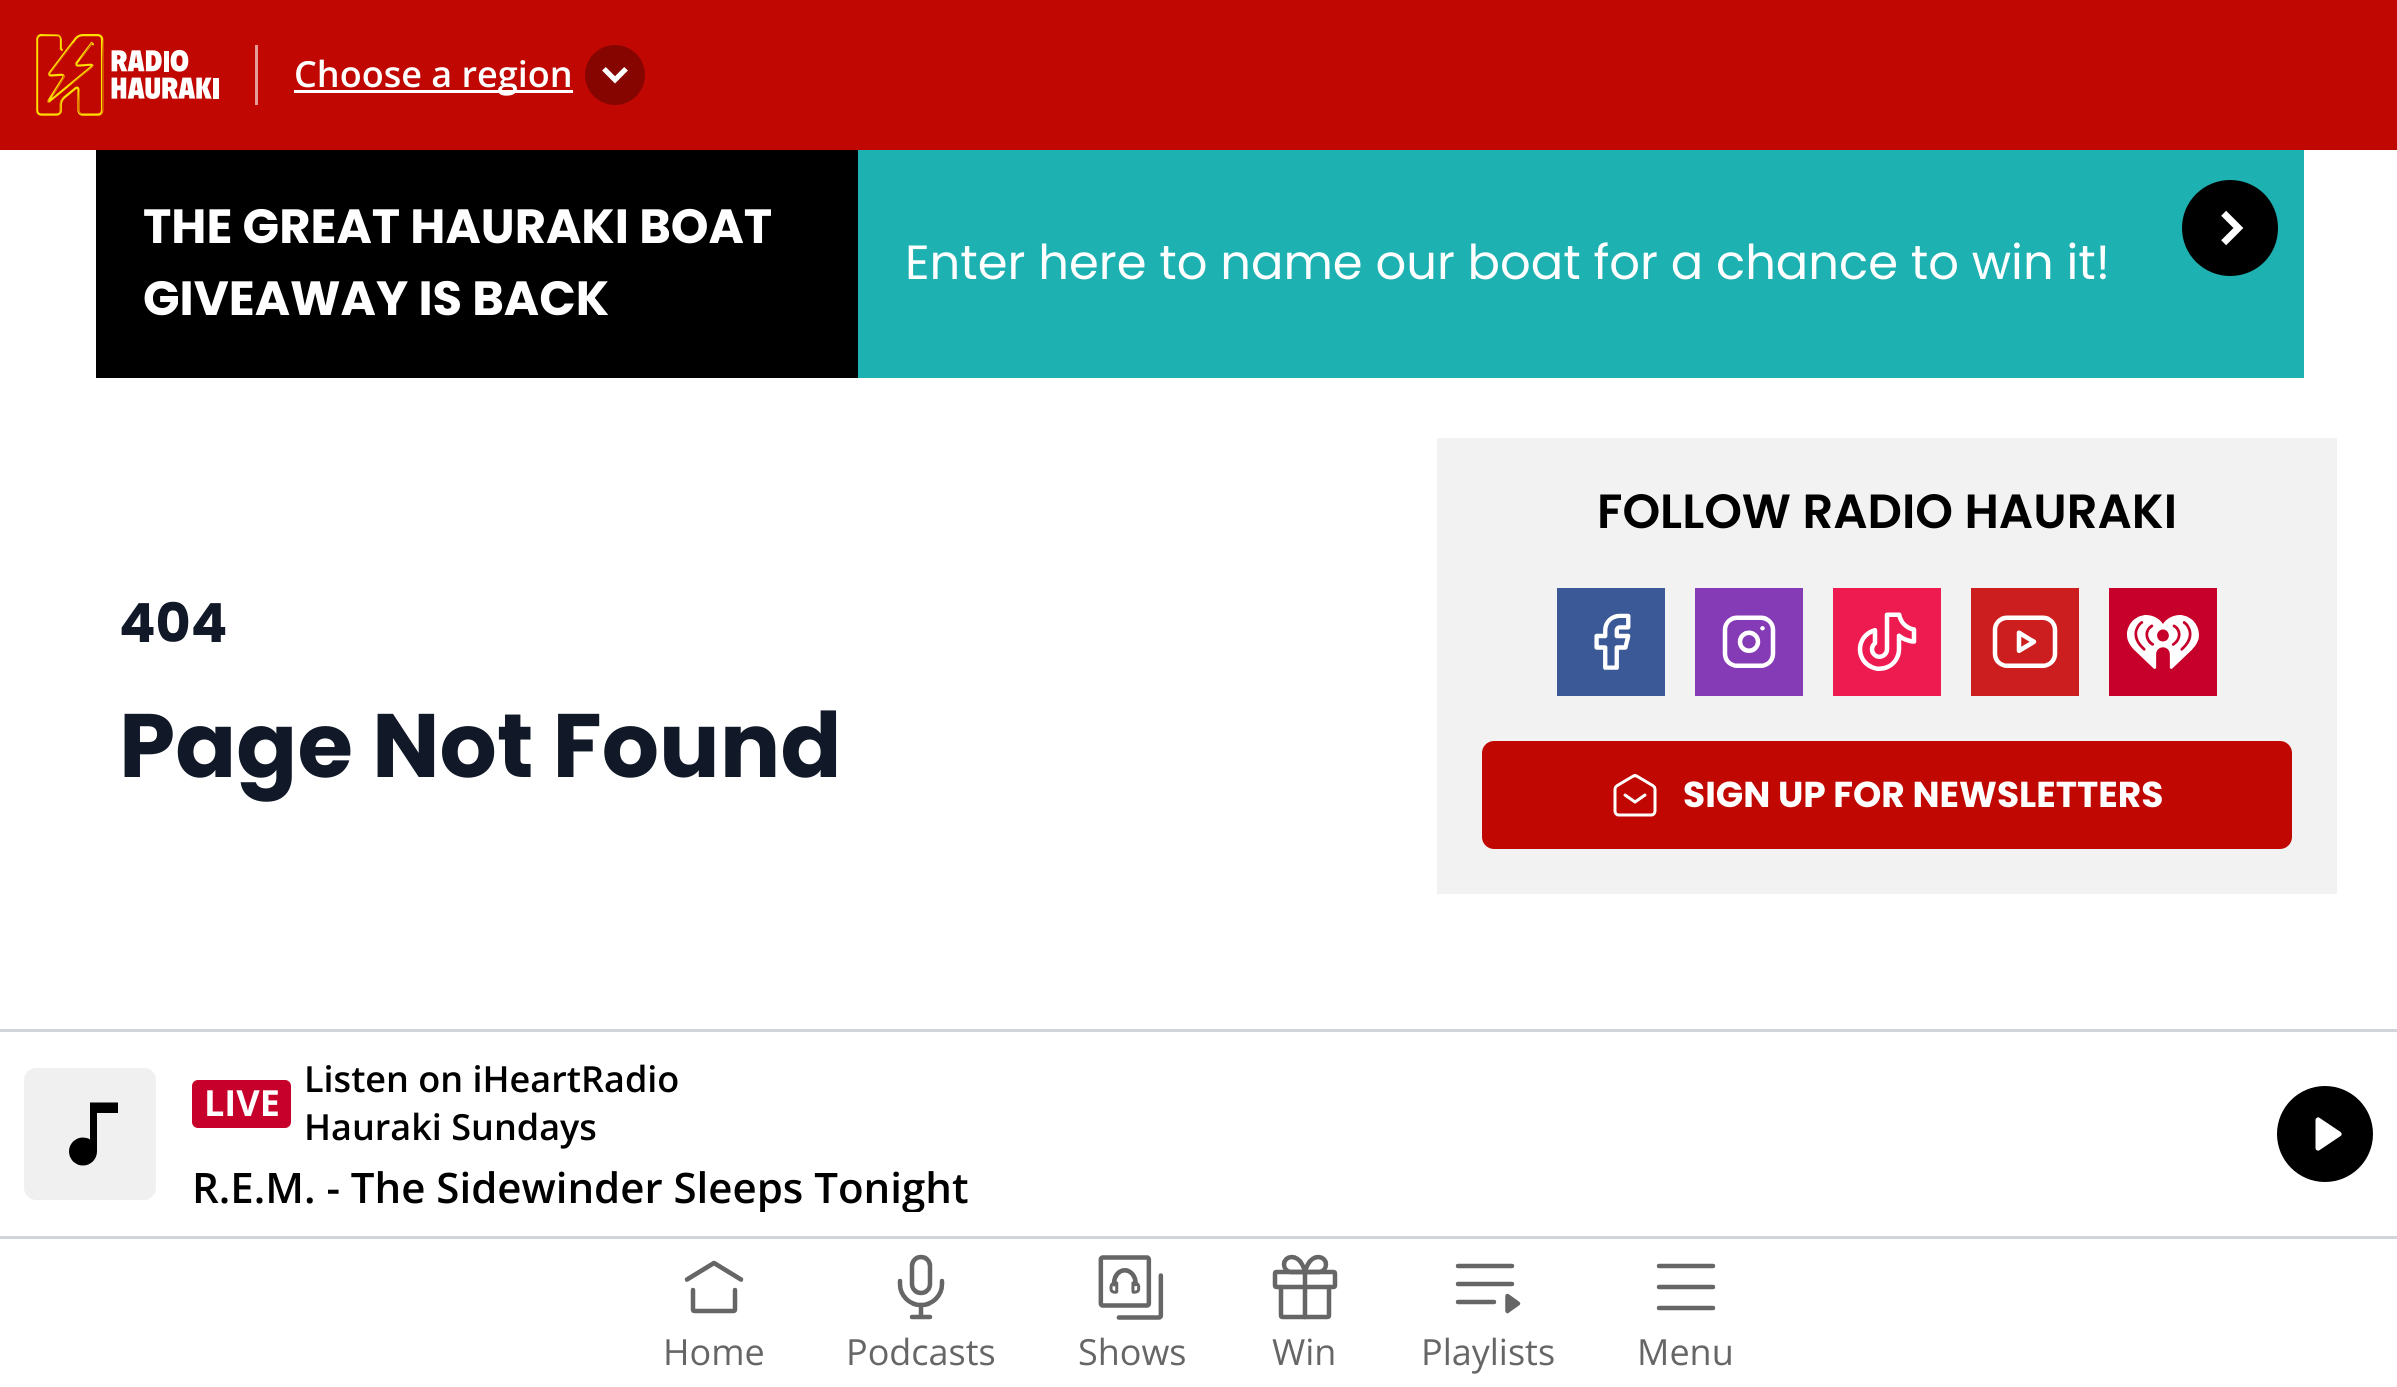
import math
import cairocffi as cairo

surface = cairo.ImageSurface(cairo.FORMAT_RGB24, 2397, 1387)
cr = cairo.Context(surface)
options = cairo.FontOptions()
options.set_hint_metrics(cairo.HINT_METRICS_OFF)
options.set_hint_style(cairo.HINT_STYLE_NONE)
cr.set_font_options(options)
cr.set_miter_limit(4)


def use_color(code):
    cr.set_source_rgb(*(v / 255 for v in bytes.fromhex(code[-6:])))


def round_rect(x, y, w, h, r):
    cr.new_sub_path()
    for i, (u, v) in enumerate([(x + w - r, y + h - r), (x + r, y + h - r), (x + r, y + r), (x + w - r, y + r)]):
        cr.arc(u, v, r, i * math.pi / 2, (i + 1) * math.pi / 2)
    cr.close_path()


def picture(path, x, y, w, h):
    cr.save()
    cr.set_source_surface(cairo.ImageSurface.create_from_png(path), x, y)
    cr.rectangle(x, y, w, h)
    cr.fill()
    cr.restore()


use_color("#ffffff")
cr.paint()
use_color("#c10701")
cr.rectangle(0, 0, 2397, 150)
cr.fill()
picture("img1.png", 36, 34, 183, 82)
use_color("#e69c99")
cr.rectangle(255, 45, 3, 60)
cr.fill()
use_color("#ffffff")
cr.rectangle(294, 90, 279, 3)
cr.fill()
cr.select_font_face("Open Sans SemiBold")
cr.set_font_size(36)
cr.move_to(294, 87)
cr.show_text("Choose a region")
use_color("#870501")
cr.new_path()
cr.arc(615, 75, 30, 0, 2 * math.pi)
cr.fill()
picture("img2.png", 602, 67, 26, 17)
use_color("#1db1b2")
cr.rectangle(858, 150, 1446, 228)
cr.fill()
use_color("#000000")
cr.rectangle(96, 150, 762, 228)
cr.fill()
cr.select_font_face("Poppins", cairo.FONT_SLANT_NORMAL, cairo.FONT_WEIGHT_BOLD)
cr.set_font_size(48)
use_color("#ffffff")
cr.move_to(143, 243)
cr.show_text("THE GREAT HAURAKI BOAT")
cr.move_to(143, 315)
cr.show_text("GIVEAWAY IS BACK")
cr.select_font_face("Poppins")
cr.move_to(905, 279)
cr.show_text("Enter here to name our boat for a chance to win it!")
use_color("#000000")
cr.new_path()
cr.move_to(2182, 228)
cr.curve_to(2182, 201, 2204, 180, 2230, 180)
cr.curve_to(2257, 180, 2278, 201, 2278, 228)
cr.curve_to(2278, 255, 2257, 276, 2230, 276)
cr.curve_to(2204, 276, 2182, 255, 2182, 228)
cr.close_path()
cr.fill()
picture("img3.png", 2221, 210, 23, 36)
cr.select_font_face("Poppins", cairo.FONT_SLANT_NORMAL, cairo.FONT_WEIGHT_BOLD)
cr.set_font_size(54)
use_color("#111827")
cr.move_to(119, 642)
cr.show_text("404")
cr.set_font_size(90)
cr.move_to(119, 777)
cr.show_text("Page Not Found")
use_color("#f2f2f2")
cr.rectangle(1437, 438, 900, 456)
cr.fill()
cr.select_font_face("Poppins SemiBold")
cr.set_font_size(48)
use_color("#000000")
cr.move_to(1597, 528)
cr.show_text("FOLLOW RADIO HAURAKI")
use_color("#3b5897")
cr.rectangle(1557, 588, 108, 108)
cr.fill()
picture("img4.png", 1594, 613, 37, 57)
use_color("#843bb5")
cr.rectangle(1695, 588, 108, 108)
cr.fill()
picture("img5.png", 1722, 615, 54, 53)
use_color("#ee1b50")
cr.rectangle(1833, 588, 108, 108)
cr.fill()
picture("img6.png", 1857, 612, 60, 59)
use_color("#cc1e1e")
cr.rectangle(1971, 588, 108, 108)
cr.fill()
picture("img7.png", 1992, 615, 66, 53)
use_color("#c7002b")
cr.rectangle(2109, 588, 108, 108)
cr.fill()
picture("img8.png", 2127, 615, 72, 54)
use_color("#c10701")
round_rect(1482, 741, 810, 108, 12)
cr.fill()
picture("img9.png", 1613, 774, 44, 43)
cr.select_font_face("Poppins", cairo.FONT_SLANT_NORMAL, cairo.FONT_WEIGHT_BOLD)
cr.set_font_size(36)
use_color("#ffffff")
cr.move_to(1683, 807)
cr.show_text("SIGN UP FOR NEWSLETTERS")
use_color("#d1d5db")
cr.rectangle(0, 1029, 2397, 3)
cr.fill()
use_color("#f0f0f0")
round_rect(24, 1068, 132, 132, 12)
cr.fill()
picture("img10.png", 69, 1102, 49, 64)
use_color("#c7002b")
round_rect(192, 1080, 99, 48, 6)
cr.fill()
cr.select_font_face("Open Sans", cairo.FONT_SLANT_NORMAL, cairo.FONT_WEIGHT_BOLD)
use_color("#ffffff")
cr.move_to(204, 1116)
cr.show_text("LIVE")
cr.select_font_face("Open Sans SemiBold")
use_color("#000000")
cr.move_to(304, 1092)
cr.show_text("Listen on iHeartRadio")
cr.move_to(304, 1140)
cr.show_text("Hauraki Sundays")
cr.save()
cr.rectangle(192, 1164, 2061, 48)
cr.clip()
cr.set_font_size(42)
cr.move_to(192, 1203)
cr.show_text("R.E.M. - The Sidewinder Sleeps Tonight")
cr.restore()
cr.new_path()
cr.arc(2325, 1134, 48, 0, 2 * math.pi)
cr.fill()
picture("img11.png", 2315, 1117, 27, 34)
use_color("#d1d5db")
cr.rectangle(0, 1236, 2397, 3)
cr.fill()
picture("img12.png", 684, 1260, 60, 54)
cr.select_font_face("Open Sans")
use_color("#666666")
cr.move_to(663, 1365)
cr.show_text("Home")
picture("img13.png", 897, 1254, 48, 66)
cr.move_to(846, 1365)
cr.show_text("Podcasts")
picture("img14.png", 1098, 1255, 66, 65)
cr.move_to(1078, 1365)
cr.show_text("Shows")
picture("img15.png", 1272, 1254, 66, 66)
cr.move_to(1272, 1365)
cr.show_text("Win")
picture("img16.png", 1455, 1263, 66, 51)
cr.move_to(1421, 1365)
cr.show_text("Playlists")
picture("img17.png", 1656, 1263, 60, 48)
cr.move_to(1637, 1365)
cr.show_text("Menu")
surface.write_to_png("result.png")
